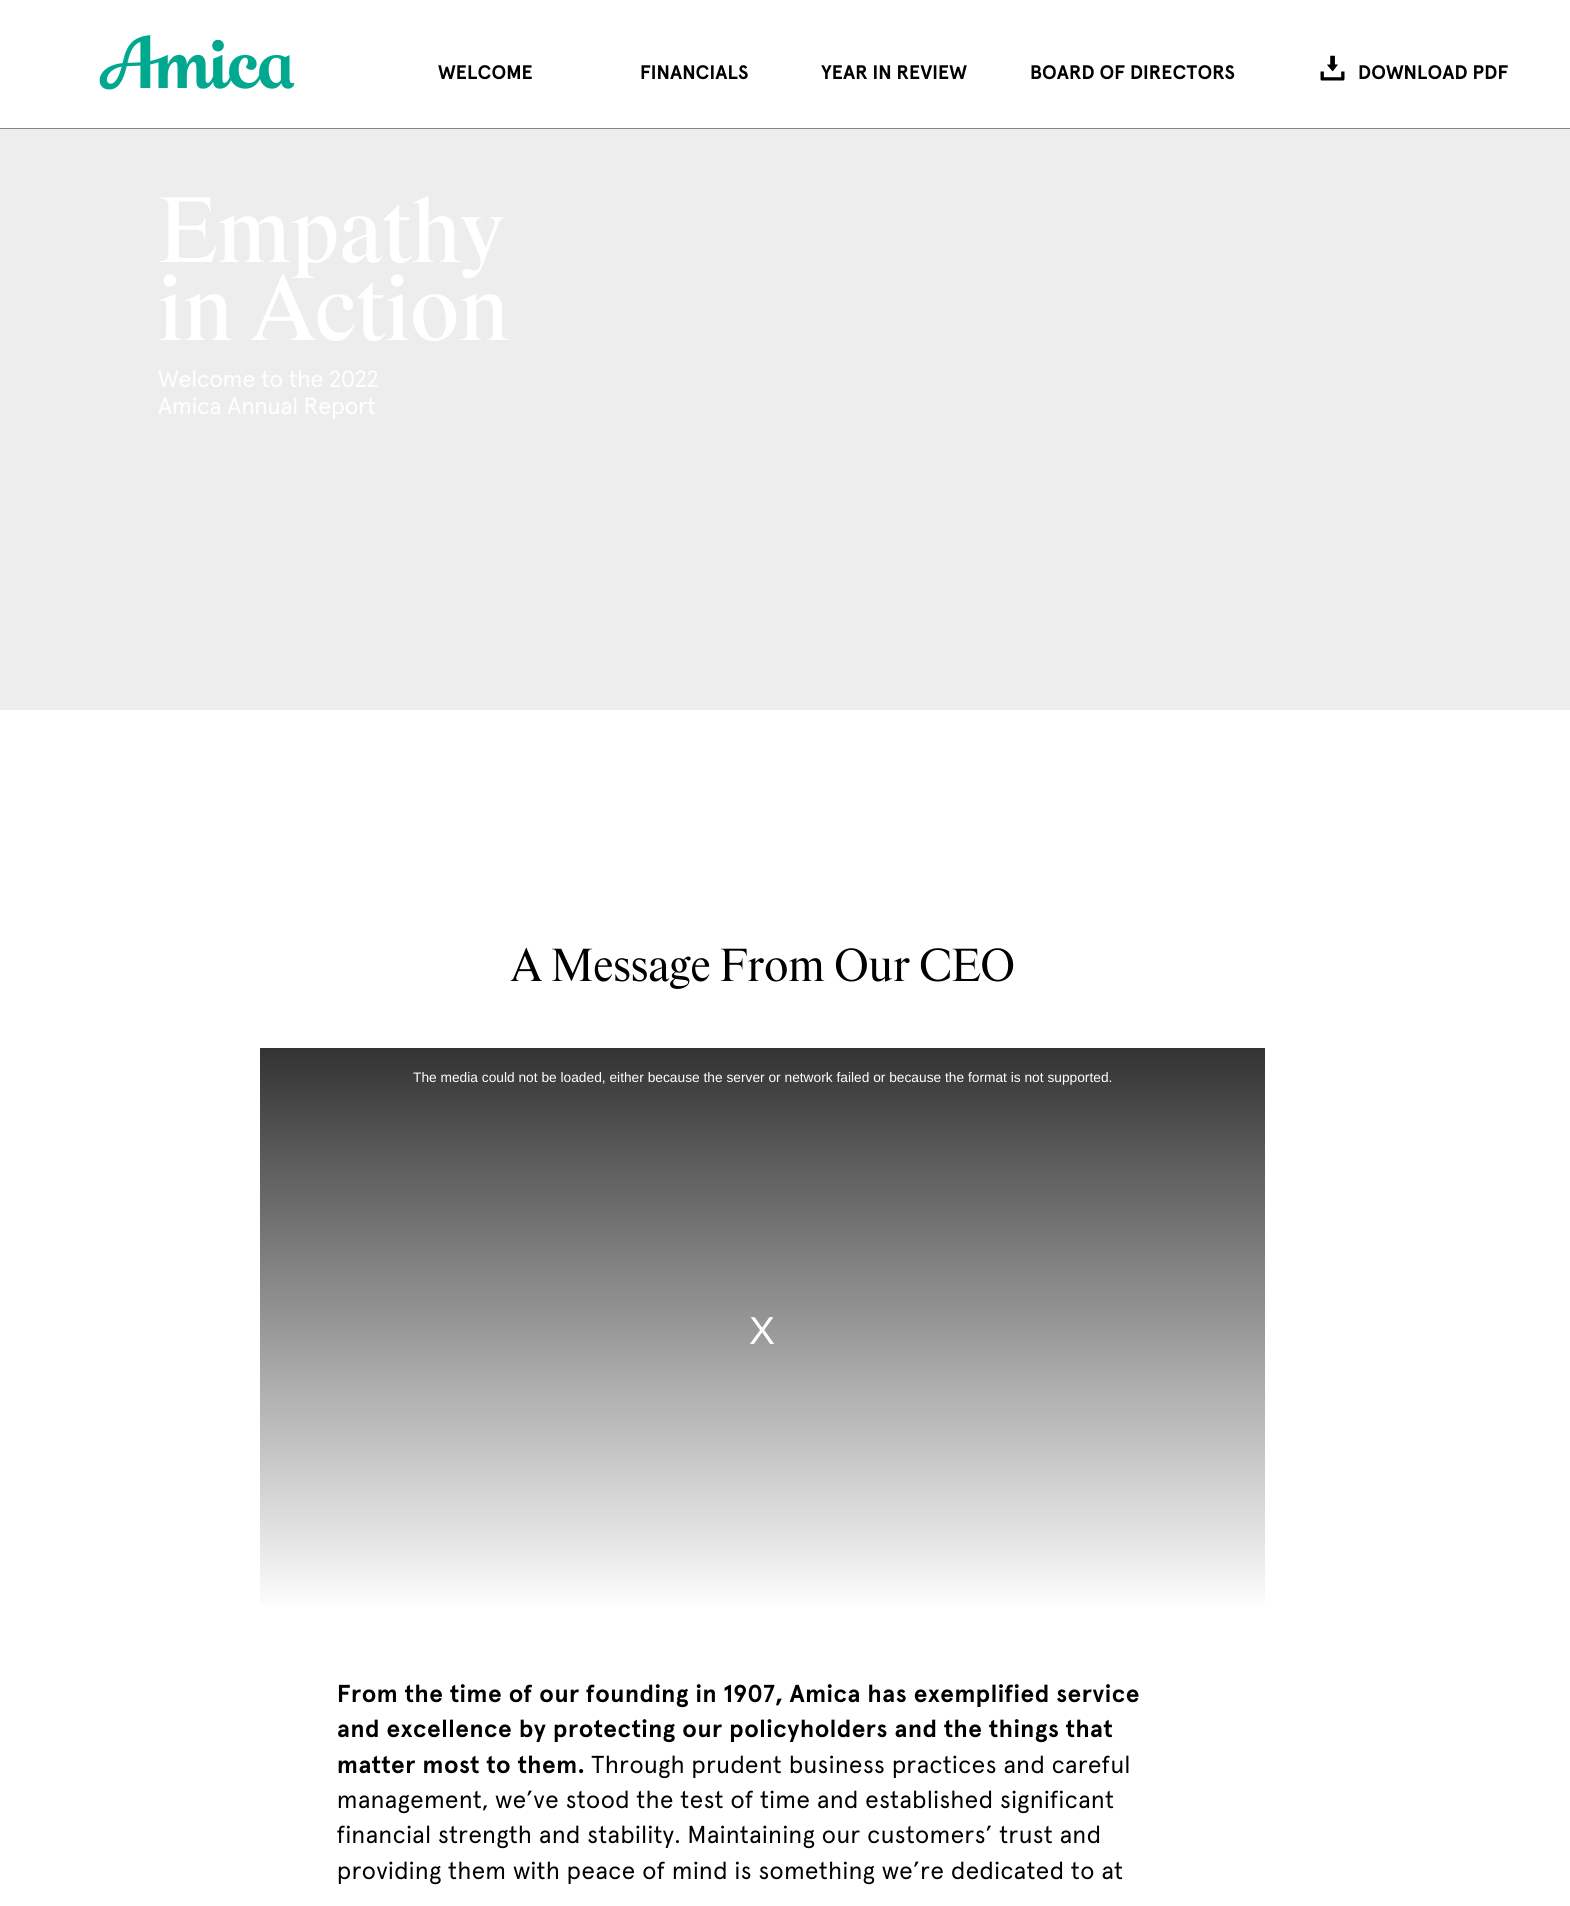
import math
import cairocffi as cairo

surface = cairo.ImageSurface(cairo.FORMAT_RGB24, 1570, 1906)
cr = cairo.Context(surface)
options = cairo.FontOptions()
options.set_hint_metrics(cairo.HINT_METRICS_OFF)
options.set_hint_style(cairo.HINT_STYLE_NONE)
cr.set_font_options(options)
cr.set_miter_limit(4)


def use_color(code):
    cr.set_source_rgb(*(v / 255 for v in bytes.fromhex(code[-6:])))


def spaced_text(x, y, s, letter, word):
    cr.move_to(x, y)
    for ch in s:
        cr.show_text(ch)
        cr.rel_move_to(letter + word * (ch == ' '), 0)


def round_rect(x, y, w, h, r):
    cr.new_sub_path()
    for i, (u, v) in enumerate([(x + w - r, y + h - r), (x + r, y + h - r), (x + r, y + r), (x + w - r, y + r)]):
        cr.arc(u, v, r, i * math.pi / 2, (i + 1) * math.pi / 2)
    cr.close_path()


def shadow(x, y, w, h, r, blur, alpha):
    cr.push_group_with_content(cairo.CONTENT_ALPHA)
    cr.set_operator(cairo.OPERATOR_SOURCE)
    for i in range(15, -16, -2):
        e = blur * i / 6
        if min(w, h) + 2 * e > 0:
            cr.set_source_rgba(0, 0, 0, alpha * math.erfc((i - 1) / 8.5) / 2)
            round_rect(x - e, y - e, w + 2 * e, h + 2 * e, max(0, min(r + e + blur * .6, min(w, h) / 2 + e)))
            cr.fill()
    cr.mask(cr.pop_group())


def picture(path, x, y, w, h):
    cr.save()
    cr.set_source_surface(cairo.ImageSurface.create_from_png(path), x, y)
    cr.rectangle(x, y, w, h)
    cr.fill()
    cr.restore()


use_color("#ededed")
cr.paint()
use_color("#000000")
shadow(-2, 0, 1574, 128, 0, 0.5, 1)
shadow(-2, 0, 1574, 128, 0, 0.5, 1)
use_color("#ffffff")
cr.rectangle(0, 0, 1570, 128)
cr.fill()
picture("img1.png", 99, 35, 196, 55)
cr.select_font_face("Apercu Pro", cairo.FONT_SLANT_NORMAL, cairo.FONT_WEIGHT_BOLD)
cr.set_font_size(19.6)
use_color("#000000")
cr.move_to(438, 79)
cr.show_text("WELCOME")
cr.move_to(640, 79)
cr.show_text("FINANCIALS")
cr.move_to(821, 79)
cr.show_text("YEAR IN REVIEW")
cr.move_to(1030, 79)
cr.show_text("BOARD OF DIRECTORS")
picture("img2.png", 1320, 55, 25, 26)
cr.move_to(1358, 79)
cr.show_text("DOWNLOAD PDF")
cr.select_font_face("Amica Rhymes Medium")
cr.set_font_size(88.5)
use_color("#ffffff")
cr.move_to(158, 262)
cr.show_text("Empathy")
cr.move_to(158, 340)
cr.show_text("in Action")
cr.select_font_face("Apercu Pro")
cr.set_font_size(23.5)
cr.move_to(158, 387)
cr.show_text("Welcome to the 2022")
cr.move_to(158, 414)
cr.show_text("Amica Annual Report")
cr.rectangle(0, 710, 1570, 1196)
cr.fill()
cr.select_font_face("Amica Rhymes")
cr.set_font_size(44.2)
use_color("#000000")
cr.move_to(511, 981)
cr.show_text("A Message From Our CEO")
cr.select_font_face("Apercu Pro", cairo.FONT_SLANT_NORMAL, cairo.FONT_WEIGHT_BOLD)
cr.set_font_size(24.5)
spaced_text(337, 1702, "From the time of our founding in 1907, Amica has exemplified service", 0.5, 0)
spaced_text(337, 1737, "and excellence by protecting our policyholders and the things that", 0.5, 0)
spaced_text(337, 1773, "matter most to them.", 0.5, 0)
cr.select_font_face("Apercu Pro")
spaced_text(591, 1773, "Through prudent business practices and careful", 0.5, 0)
spaced_text(337, 1808, "management, we’ve stood the test of time and established significant", 0.5, 0)
spaced_text(337, 1843, "financial strength and stability. Maintaining our customers’ trust and", 0.5, 0)
spaced_text(337, 1879, "providing them with peace of mind is something we’re dedicated to at", 0.5, 0)
gradient = cairo.LinearGradient(762, 1048, 762, 1612)
gradient.add_color_stop_rgba(0, 0.2, 0.2, 0.2, 1)
gradient.add_color_stop_rgba(1, 1, 1, 1, 1)
cr.set_source(gradient)
cr.rectangle(260, 1048, 1005, 557)
cr.fill()
cr.select_font_face("Liberation Sans")
cr.set_font_size(13.75)
use_color("#ffffff")
cr.move_to(413, 1082)
cr.show_text("The media could not be loaded, either because the server or network failed or because the format is not supported.")
cr.set_font_size(39)
cr.move_to(749, 1344)
cr.show_text("X")
surface.write_to_png("result.png")
